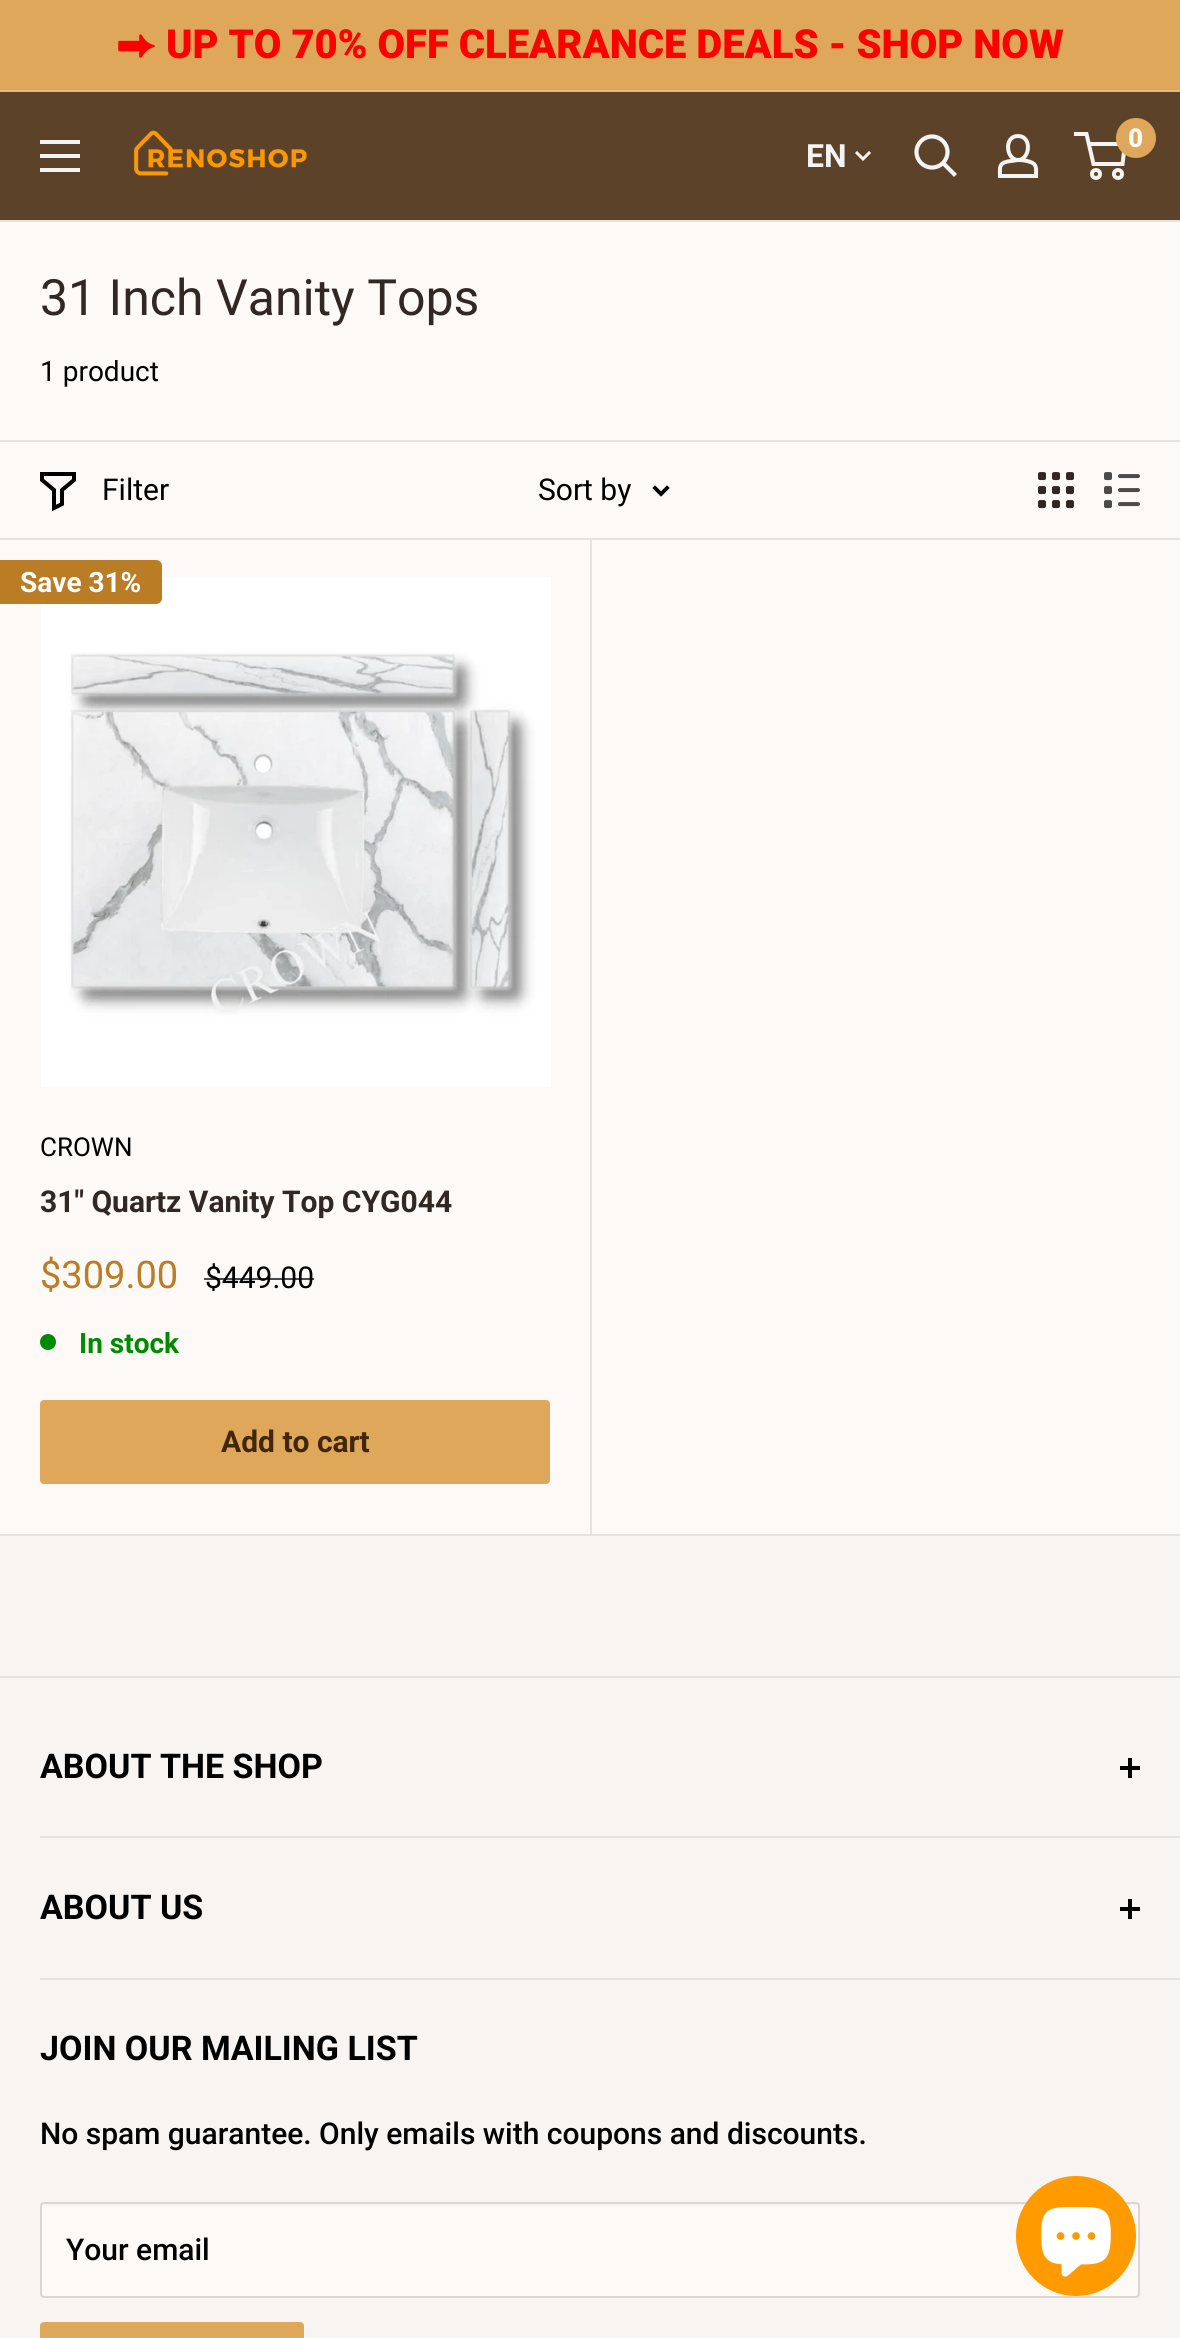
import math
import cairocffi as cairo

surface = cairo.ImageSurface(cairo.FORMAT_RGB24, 1180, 2338)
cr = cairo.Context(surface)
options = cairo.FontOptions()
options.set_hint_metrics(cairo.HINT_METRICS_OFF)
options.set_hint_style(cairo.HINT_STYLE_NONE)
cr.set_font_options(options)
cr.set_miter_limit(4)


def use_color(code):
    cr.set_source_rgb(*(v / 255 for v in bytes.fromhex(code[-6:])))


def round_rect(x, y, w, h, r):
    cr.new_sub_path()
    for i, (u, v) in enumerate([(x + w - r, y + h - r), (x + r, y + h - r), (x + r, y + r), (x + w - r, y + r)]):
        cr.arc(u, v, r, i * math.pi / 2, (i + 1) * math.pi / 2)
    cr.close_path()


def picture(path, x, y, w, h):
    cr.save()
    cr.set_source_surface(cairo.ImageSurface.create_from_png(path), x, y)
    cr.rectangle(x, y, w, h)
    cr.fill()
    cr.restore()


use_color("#f7f4f2")
cr.paint()
use_color("#dfa759")
cr.rectangle(0, 0, 1180, 90)
cr.fill()
use_color("#e2b981")
cr.rectangle(0, 90, 1180, 2)
cr.fill()
cr.select_font_face("FreeSans", cairo.FONT_SLANT_NORMAL, cairo.FONT_WEIGHT_BOLD)
cr.set_font_size(40)
use_color("#ff0000")
cr.move_to(116, 58)
cr.show_text("⮕")
cr.select_font_face("Roboto Black")
cr.move_to(166, 58)
cr.show_text("UP TO 70% OFF CLEARANCE DEALS - SHOP NOW")
use_color("#5b4228")
cr.rectangle(0, 92, 1180, 128)
cr.fill()
use_color("#f3f4f4")
cr.set_fill_rule(cairo.FILL_RULE_EVEN_ODD)
cr.new_path()
cr.move_to(40, 168)
cr.line_to(80, 168)
cr.line_to(80, 172)
cr.line_to(40, 172)
cr.close_path()
cr.move_to(40, 140)
cr.line_to(80, 140)
cr.line_to(80, 144)
cr.line_to(40, 144)
cr.close_path()
cr.move_to(40, 154)
cr.line_to(80, 154)
cr.line_to(80, 158)
cr.line_to(40, 158)
cr.close_path()
cr.fill()
picture("img1.png", 133, 130, 174, 46)
cr.select_font_face("Roboto", cairo.FONT_SLANT_NORMAL, cairo.FONT_WEIGHT_BOLD)
cr.set_font_size(32)
cr.move_to(806, 167)
cr.show_text("EN")
cr.new_path()
cr.move_to(869, 153)
cr.line_to(863, 159)
cr.line_to(857, 153)
cr.set_line_width(3)
cr.set_line_cap(cairo.LINE_CAP_SQUARE)
cr.stroke()
cr.new_path()
cr.move_to(954, 174)
cr.line_to(943.5, 163.5)
cr.set_line_width(4.2)
cr.stroke()
cr.arc(932, 152, 15.5, 0, 2 * math.pi)
cr.set_line_cap(cairo.LINE_CAP_BUTT)
cr.stroke()
cr.new_path()
cr.move_to(1018, 160)
cr.curve_to(1022, 160, 1025.5, 160.5, 1029, 161.5)
cr.curve_to(1037.5, 164, 1036, 168.5, 1036, 176)
cr.line_to(1000, 176)
cr.curve_to(1000, 168, 998.5, 163.5, 1007.5, 161.5)
cr.close_path()
cr.move_to(1018, 160)
cr.curve_to(1006, 160, 1003.5, 136, 1018, 136)
cr.curve_to(1032.5, 136, 1030, 160, 1018, 160)
cr.close_path()
cr.set_line_width(4)
cr.stroke()
cr.arc(1096, 174, 4, 0, 2 * math.pi)
cr.stroke()
cr.arc(1118, 174, 4, 0, 2 * math.pi)
cr.stroke()
cr.new_path()
cr.move_to(1088.5, 144)
cr.line_to(1125, 144)
cr.line_to(1122.5, 164)
cr.line_to(1093.5, 164)
cr.line_to(1086.5, 134)
cr.line_to(1074, 134)
cr.stroke()
use_color("#dfa759")
cr.arc(1136, 138, 20, 0, 2 * math.pi)
cr.fill()
cr.select_font_face("Roboto Black")
cr.set_font_size(26)
use_color("#fcf9f7")
cr.move_to(1128, 147)
cr.show_text("0")
cr.rectangle(0, 222, 1180, 1312)
cr.fill()
use_color("#e7e2de")
cr.rectangle(0, 220, 1180, 2)
cr.fill()
cr.rectangle(0, 1534, 1180, 2)
cr.fill()
cr.select_font_face("Roboto")
cr.set_font_size(50)
use_color("#312723")
cr.move_to(40, 315)
cr.show_text("31 Inch Vanity Tops")
cr.set_font_size(28)
use_color("#000000")
cr.move_to(40, 381)
cr.show_text("1 product")
use_color("#e7e2de")
cr.rectangle(0, 440, 1180, 2)
cr.fill()
cr.rectangle(590, 538, 2, 996)
cr.fill()
cr.rectangle(0, 538, 1180, 2)
cr.fill()
cr.new_path()
cr.move_to(74, 480)
cr.line_to(62, 490)
cr.line_to(62, 504)
cr.line_to(54, 508)
cr.line_to(54, 490)
cr.line_to(42, 480)
cr.line_to(42, 474)
cr.line_to(74, 474)
cr.close_path()
use_color("#000000")
cr.set_line_cap(cairo.LINE_CAP_SQUARE)
cr.stroke()
cr.set_font_size(30)
cr.move_to(102, 500)
cr.show_text("Filter")
cr.move_to(538, 500)
cr.show_text("Sort by")
cr.new_path()
cr.move_to(667, 488)
cr.line_to(661, 494)
cr.line_to(655, 488)
cr.set_line_width(3.8)
cr.stroke()
picture("img2.png", 1038, 472, 36, 37)
picture("img3.png", 1104, 472, 36, 37)
picture("img4.png", 41, 577, 510, 510)
use_color("#ba7c24")
cr.new_path()
cr.move_to(0, 560)
cr.line_to(156, 560)
cr.curve_to(159.5, 560, 162, 562.5, 162, 566)
cr.line_to(162, 598)
cr.curve_to(162, 601.5, 159.5, 604, 156, 604)
cr.line_to(0, 604)
cr.close_path()
cr.fill()
cr.select_font_face("Roboto", cairo.FONT_SLANT_NORMAL, cairo.FONT_WEIGHT_BOLD)
cr.set_font_size(28)
use_color("#ffffff")
cr.move_to(20, 592)
cr.show_text("Save 31%")
cr.select_font_face("Roboto")
cr.set_font_size(26)
use_color("#000000")
cr.move_to(40, 1156)
cr.show_text("CROWN")
cr.select_font_face("Roboto", cairo.FONT_SLANT_NORMAL, cairo.FONT_WEIGHT_BOLD)
cr.set_font_size(30)
use_color("#312723")
cr.move_to(40, 1212)
cr.show_text("31\" Quartz Vanity Top CYG044")
cr.select_font_face("Roboto")
cr.set_font_size(38)
use_color("#ba7c24")
cr.move_to(40, 1288)
cr.show_text("$309.00")
cr.set_font_size(30)
use_color("#000000")
cr.move_to(205, 1288)
cr.show_text("$449.00")
cr.set_source_rgba(0, 0, 0, 0.7)
cr.rectangle(204, 1278, 110, 2)
cr.fill()
use_color("#008a00")
cr.arc(48, 1342, 8, 0, 2 * math.pi)
cr.fill()
cr.select_font_face("Roboto", cairo.FONT_SLANT_NORMAL, cairo.FONT_WEIGHT_BOLD)
cr.set_font_size(28)
cr.move_to(79, 1353)
cr.show_text("In stock")
use_color("#dfa759")
round_rect(40, 1400, 510, 84, 4)
cr.fill()
cr.set_font_size(30)
use_color("#41260c")
cr.move_to(221, 1452)
cr.show_text("Add to cart")
use_color("#e7e2de")
cr.rectangle(0, 1676, 1180, 2)
cr.fill()
cr.rectangle(40, 1836, 1140, 2)
cr.fill()
cr.set_font_size(34)
use_color("#000000")
cr.move_to(40, 1778)
cr.show_text("ABOUT THE SHOP")
cr.rectangle(1128, 1758, 4, 20)
cr.fill()
cr.rectangle(1120, 1766, 20, 4)
cr.fill()
use_color("#e7e2de")
cr.rectangle(40, 1978, 1140, 2)
cr.fill()
use_color("#000000")
cr.move_to(40, 1919)
cr.show_text("ABOUT US")
cr.rectangle(1128, 1899, 4, 20)
cr.fill()
cr.rectangle(1120, 1907, 20, 4)
cr.fill()
cr.move_to(40, 2060)
cr.show_text("JOIN OUR MAILING LIST")
cr.select_font_face("Roboto Medium")
cr.set_font_size(30)
cr.move_to(40, 2144)
cr.show_text("No spam guarantee. Only emails with coupons and discounts.")
use_color("#fcf9f7")
round_rect(40, 2202, 1100, 96, 4)
cr.fill()
use_color("#f7f3f1")
cr.set_fill_rule(cairo.FILL_RULE_WINDING)
cr.new_path()
cr.move_to(44, 2206)
cr.line_to(1136, 2206)
cr.curve_to(1137, 2206, 1138, 2207, 1138, 2208)
cr.curve_to(1138, 2206, 1138, 2204, 1136, 2204)
cr.line_to(44, 2204)
cr.line_to(42, 2205)
cr.line_to(42, 2208)
cr.curve_to(42, 2207, 43, 2206, 44, 2206)
cr.close_path()
cr.fill()
round_rect(41, 2203, 1098, 94, 3)
use_color("#dcd5cf")
cr.set_line_width(2)
cr.set_line_cap(cairo.LINE_CAP_BUTT)
cr.stroke()
use_color("#000000")
cr.move_to(66, 2260)
cr.show_text("Your email")
use_color("#dfa759")
round_rect(40, 2322, 264, 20, 4)
cr.fill()
use_color("#ff9a00")
cr.arc(1076, 2236, 60, 0, 2 * math.pi)
cr.fill()
picture("img5.png", 1041, 2207, 70, 70)
surface.write_to_png("result.png")
